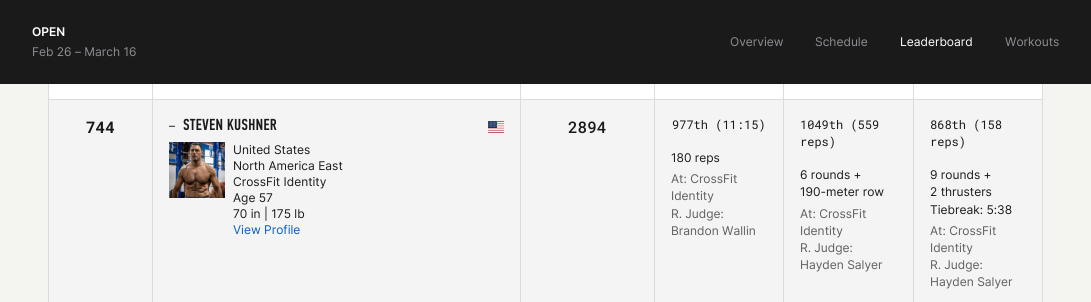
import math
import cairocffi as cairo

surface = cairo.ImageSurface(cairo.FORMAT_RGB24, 1091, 302)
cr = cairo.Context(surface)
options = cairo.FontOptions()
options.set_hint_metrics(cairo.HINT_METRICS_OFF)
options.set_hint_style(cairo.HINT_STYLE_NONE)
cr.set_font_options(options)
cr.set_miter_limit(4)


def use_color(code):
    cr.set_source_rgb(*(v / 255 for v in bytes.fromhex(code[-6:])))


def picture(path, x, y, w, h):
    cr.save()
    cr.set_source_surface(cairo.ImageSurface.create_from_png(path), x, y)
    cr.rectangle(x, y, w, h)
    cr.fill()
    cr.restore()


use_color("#f4f4f0")
cr.paint()
use_color("#1a1a1a")
cr.rectangle(0, 0, 1091, 84)
cr.fill()
cr.select_font_face("Inter SemiBold")
cr.set_font_size(12)
use_color("#ffffff")
cr.move_to(32, 36)
cr.show_text("OPEN")
cr.select_font_face("Inter")
use_color("#8e8e93")
cr.move_to(32, 56)
cr.show_text("Feb 26 – March 16")
cr.move_to(730, 46)
cr.show_text("Overview")
cr.move_to(815, 46)
cr.show_text("Schedule")
use_color("#ffffff")
cr.move_to(900, 46)
cr.show_text("Leaderboard")
use_color("#8e8e93")
cr.move_to(1005, 46)
cr.show_text("Workouts")
use_color("#ffffff")
cr.rectangle(49, 84, 993, 15)
cr.fill()
use_color("#f4f4f4")
cr.rectangle(49, 100, 993, 202)
cr.fill()
use_color("#dcdcdc")
cr.rectangle(152, 84, 1, 218)
cr.fill()
cr.rectangle(48, 99, 105, 1)
cr.fill()
cr.rectangle(48, 84, 1, 218)
cr.fill()
cr.rectangle(520, 84, 1, 218)
cr.fill()
cr.rectangle(153, 99, 368, 1)
cr.fill()
cr.rectangle(654, 84, 1, 218)
cr.fill()
cr.rectangle(521, 99, 134, 1)
cr.fill()
cr.rectangle(783, 84, 1, 218)
cr.fill()
cr.rectangle(655, 99, 129, 1)
cr.fill()
cr.rectangle(913, 84, 1, 218)
cr.fill()
cr.rectangle(784, 99, 130, 1)
cr.fill()
cr.rectangle(1042, 84, 1, 218)
cr.fill()
cr.rectangle(914, 99, 129, 1)
cr.fill()
cr.select_font_face("Roboto Mono", cairo.FONT_SLANT_NORMAL, cairo.FONT_WEIGHT_BOLD)
cr.set_font_size(16)
use_color("#1a1a1a")
cr.move_to(86, 133)
cr.show_text("744")
cr.select_font_face("Inter")
cr.set_font_size(12)
cr.move_to(169, 130)
cr.show_text("–")
picture("img1.png", 183, 118, 94, 13)
picture("img2.png", 488, 121, 16, 12)
picture("img3.png", 169, 142, 56, 56)
cr.move_to(233, 154)
cr.show_text("United States")
cr.move_to(233, 170)
cr.show_text("North America East")
cr.move_to(233, 186)
cr.show_text("CrossFit Identity")
cr.move_to(233, 202)
cr.show_text("Age 57")
cr.move_to(233, 218)
cr.show_text("70 in | 175 lb")
use_color("#075dc6")
cr.move_to(233, 234)
cr.show_text("View Profile")
cr.select_font_face("Roboto Mono Medium")
cr.set_font_size(16)
use_color("#1a1a1a")
cr.move_to(568, 133)
cr.show_text("2894")
cr.select_font_face("Roboto Mono")
cr.set_font_size(12)
cr.move_to(672, 129)
cr.show_text("977th (11:15)")
cr.select_font_face("Inter")
cr.move_to(671, 162)
cr.show_text("180 reps")
use_color("#5f5f5f")
cr.move_to(671, 183)
cr.show_text("At: CrossFit")
cr.move_to(671, 200)
cr.show_text("Identity")
cr.move_to(671, 218)
cr.show_text("R. Judge:")
cr.move_to(671, 235)
cr.show_text("Brandon Wallin")
cr.select_font_face("Roboto Mono")
use_color("#1a1a1a")
cr.move_to(800, 129)
cr.show_text("1049th (559")
cr.move_to(800, 146)
cr.show_text("reps)")
cr.select_font_face("Inter")
cr.move_to(800, 179)
cr.show_text("6 rounds +")
cr.move_to(800, 196)
cr.show_text("190-meter row")
use_color("#5f5f5f")
cr.move_to(800, 218)
cr.show_text("At: CrossFit")
cr.move_to(800, 235)
cr.show_text("Identity")
cr.move_to(800, 252)
cr.show_text("R. Judge:")
cr.move_to(800, 269)
cr.show_text("Hayden Salyer")
cr.select_font_face("Roboto Mono")
use_color("#1a1a1a")
cr.move_to(930, 129)
cr.show_text("868th (158")
cr.move_to(930, 146)
cr.show_text("reps)")
cr.select_font_face("Inter")
cr.move_to(930, 179)
cr.show_text("9 rounds +")
cr.move_to(930, 196)
cr.show_text("2 thrusters")
cr.move_to(930, 214)
cr.show_text("Tiebreak: 5:38")
use_color("#5f5f5f")
cr.move_to(930, 235)
cr.show_text("At: CrossFit")
cr.move_to(930, 252)
cr.show_text("Identity")
cr.move_to(930, 269)
cr.show_text("R. Judge:")
cr.move_to(930, 286)
cr.show_text("Hayden Salyer")
surface.write_to_png("result.png")
